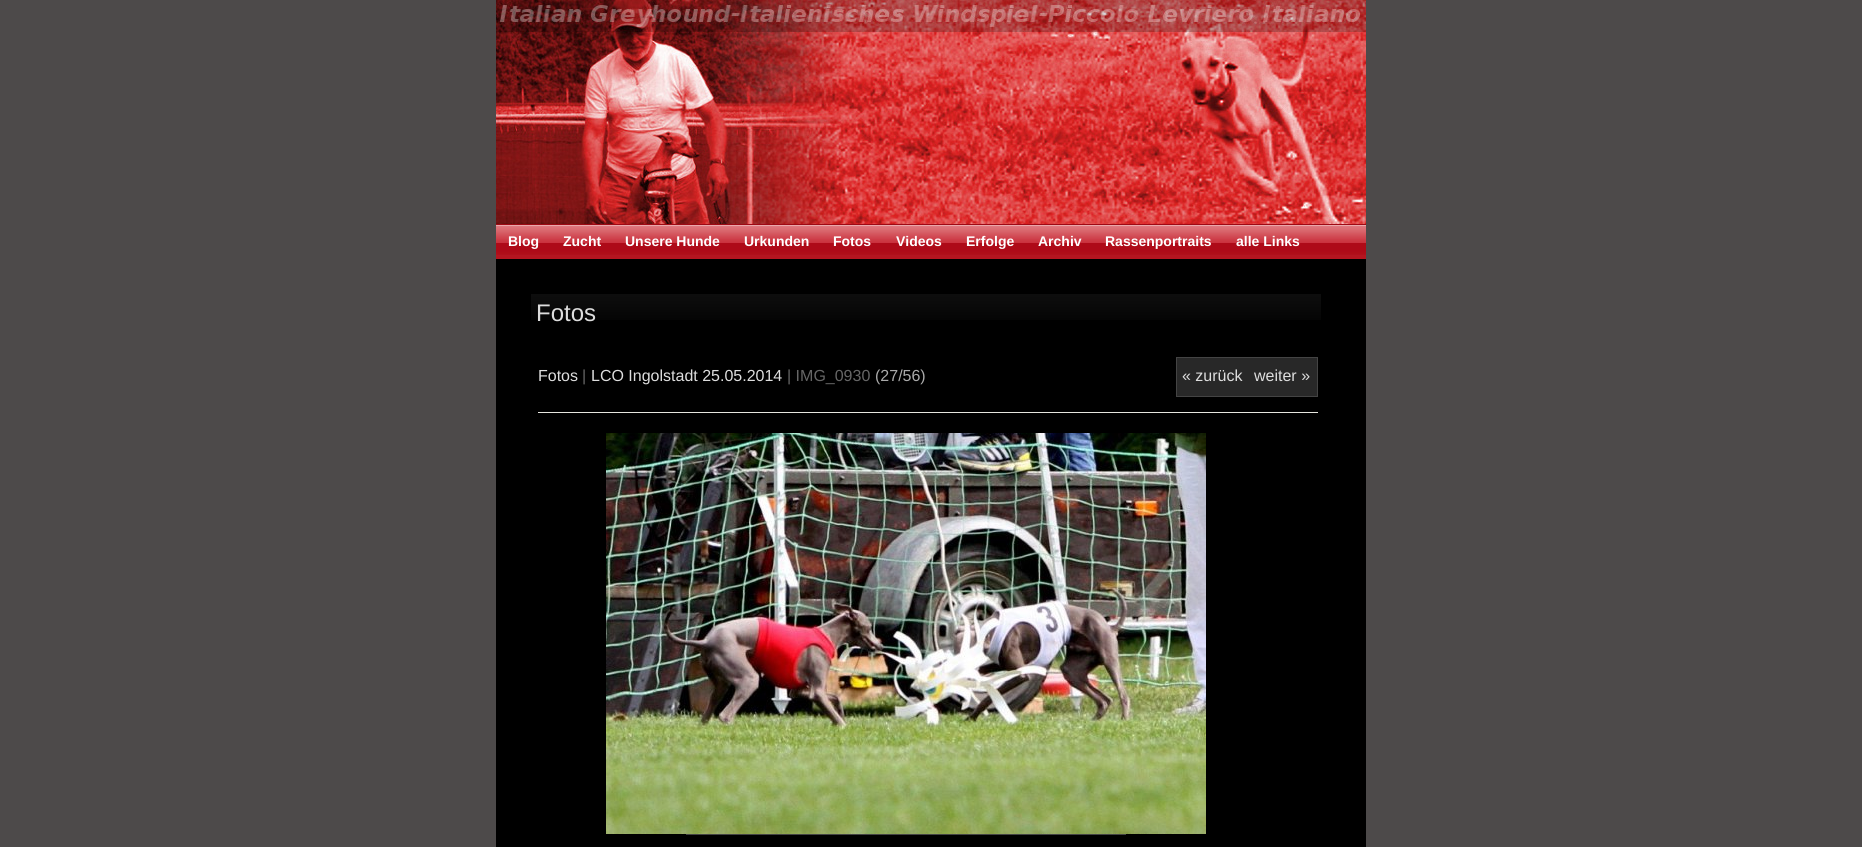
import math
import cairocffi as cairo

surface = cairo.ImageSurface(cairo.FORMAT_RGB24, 1862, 847)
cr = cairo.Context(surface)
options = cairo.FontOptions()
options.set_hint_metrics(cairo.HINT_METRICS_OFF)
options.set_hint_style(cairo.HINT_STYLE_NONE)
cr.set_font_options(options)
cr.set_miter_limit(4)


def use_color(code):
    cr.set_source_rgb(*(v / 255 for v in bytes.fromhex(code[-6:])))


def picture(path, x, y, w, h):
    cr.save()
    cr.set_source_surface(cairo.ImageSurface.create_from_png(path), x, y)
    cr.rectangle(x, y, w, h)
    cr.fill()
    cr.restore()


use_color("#4d4a4a")
cr.paint()
use_color("#000000")
cr.rectangle(496, 259, 870, 588)
cr.fill()
picture("img1.png", 496, 0, 870, 224)
use_color("#b41520")
cr.rectangle(1312, 255, 54, 4)
cr.fill()
picture("img2.png", 1312, 224, 54, 31)
cr.rectangle(496, 255, 816, 4)
cr.fill()
picture("img3.png", 496, 224, 55, 31)
cr.select_font_face("Liberation Sans", cairo.FONT_SLANT_NORMAL, cairo.FONT_WEIGHT_BOLD)
cr.set_font_size(14)
use_color("#ffffff")
cr.move_to(508, 246)
cr.show_text("Blog")
picture("img4.png", 551, 224, 62, 31)
cr.move_to(563, 246)
cr.show_text("Zucht")
picture("img5.png", 613, 224, 119, 31)
cr.move_to(625, 246)
cr.show_text("Unsere Hunde")
picture("img6.png", 732, 224, 89, 31)
cr.move_to(744, 246)
cr.show_text("Urkunden")
picture("img7.png", 821, 224, 63, 31)
cr.move_to(833, 246)
cr.show_text("Fotos")
picture("img8.png", 884, 224, 70, 31)
cr.move_to(896, 246)
cr.show_text("Videos")
picture("img9.png", 954, 224, 72, 31)
cr.move_to(966, 246)
cr.show_text("Erfolge")
picture("img10.png", 1026, 224, 67, 31)
cr.move_to(1038, 246)
cr.show_text("Archiv")
picture("img11.png", 1093, 224, 131, 31)
cr.move_to(1105, 246)
cr.show_text("Rassenportraits")
picture("img12.png", 1224, 224, 88, 31)
cr.move_to(1236, 246)
cr.show_text("alle Links")
picture("img13.png", 531, 294, 790, 26)
cr.select_font_face("Liberation Sans")
cr.set_font_size(24)
use_color("#dedede")
cr.move_to(536, 321)
cr.show_text("Fotos")
use_color("#e6e6df")
cr.rectangle(538, 412, 780, 1)
cr.fill()
cr.set_font_size(16)
use_color("#dedede")
cr.move_to(538, 381)
cr.show_text("Fotos")
use_color("#666666")
cr.move_to(582, 381)
cr.show_text("|")
use_color("#dedede")
cr.move_to(591, 381)
cr.show_text("LCO Ingolstadt 25.05.2014")
use_color("#666666")
cr.move_to(787, 381)
cr.show_text("| IMG_0930")
use_color("#aaaaaa")
cr.move_to(875, 381)
cr.show_text("(27/56)")
use_color("#282828")
cr.rectangle(1176.5, 357.5, 141, 39)
cr.fill_preserve()
use_color("#444444")
cr.set_line_width(1)
cr.stroke()
use_color("#dedede")
cr.move_to(1182, 381)
cr.show_text("« zurück")
cr.move_to(1254, 381)
cr.show_text("weiter »")
picture("img14.png", 606, 433, 600, 401)
use_color("#444444")
cr.rectangle(686, 834, 440, 1)
cr.fill()
surface.write_to_png("result.png")
